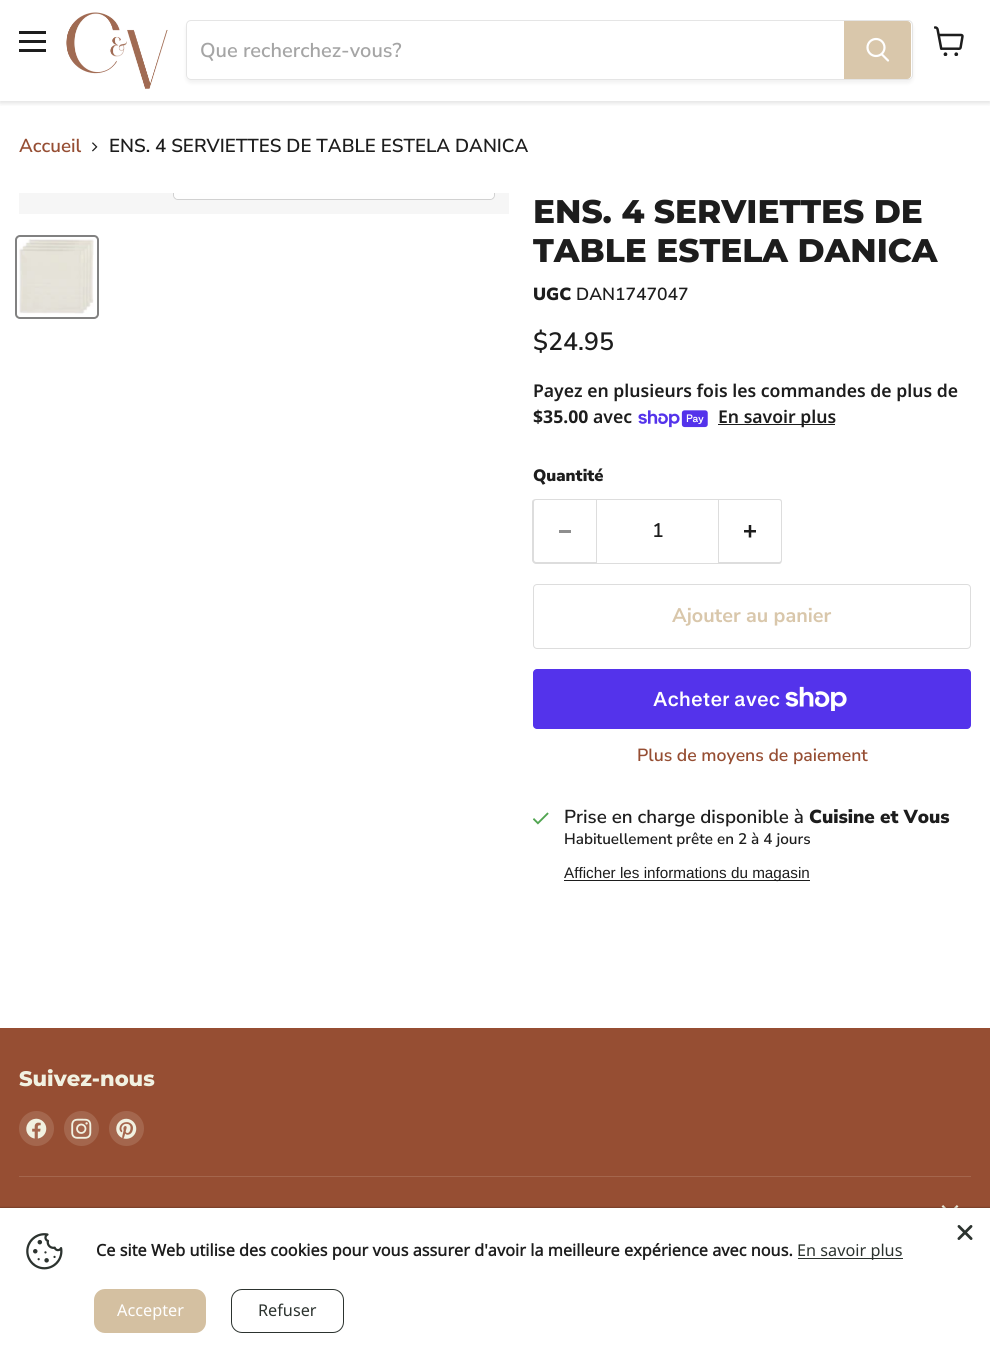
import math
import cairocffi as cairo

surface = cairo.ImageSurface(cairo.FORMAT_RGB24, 990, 1357)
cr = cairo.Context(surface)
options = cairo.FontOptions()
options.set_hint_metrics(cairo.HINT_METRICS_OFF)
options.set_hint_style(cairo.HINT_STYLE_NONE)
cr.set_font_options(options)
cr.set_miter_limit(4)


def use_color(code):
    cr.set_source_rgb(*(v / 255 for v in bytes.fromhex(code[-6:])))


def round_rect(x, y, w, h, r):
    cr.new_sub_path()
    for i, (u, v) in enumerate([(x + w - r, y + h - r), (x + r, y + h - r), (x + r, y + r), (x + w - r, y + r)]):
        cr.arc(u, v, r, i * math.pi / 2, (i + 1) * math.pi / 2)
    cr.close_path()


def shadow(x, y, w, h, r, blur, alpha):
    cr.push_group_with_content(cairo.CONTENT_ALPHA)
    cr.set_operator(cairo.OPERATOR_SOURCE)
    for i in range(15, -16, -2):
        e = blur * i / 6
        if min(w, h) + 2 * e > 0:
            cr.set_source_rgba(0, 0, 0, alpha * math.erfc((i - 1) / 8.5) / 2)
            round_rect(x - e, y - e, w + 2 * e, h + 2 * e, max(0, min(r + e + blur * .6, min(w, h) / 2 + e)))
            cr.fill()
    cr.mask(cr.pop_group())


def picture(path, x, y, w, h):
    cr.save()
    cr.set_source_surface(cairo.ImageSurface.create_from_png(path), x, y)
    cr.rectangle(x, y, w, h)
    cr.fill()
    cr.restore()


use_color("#ffffff")
cr.paint()
cr.save()
cr.rectangle(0, 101, 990, 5)
cr.clip()
use_color("#808080")
shadow(0, 1, 990, 102, 0, 2.5, 0.25)
cr.restore()
use_color("#1d1d1d")
cr.rectangle(19, 31, 27, 3)
cr.fill()
cr.rectangle(19, 40, 27, 3)
cr.fill()
cr.rectangle(19, 49, 27, 3)
cr.fill()
picture("img1.png", 66, 12, 102, 77)
cr.save()
cr.set_fill_rule(cairo.FILL_RULE_EVEN_ODD)
cr.new_path()
cr.move_to(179, 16)
cr.line_to(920, 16)
cr.line_to(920, 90)
cr.line_to(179, 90)
cr.close_path()
cr.move_to(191, 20)
cr.line_to(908, 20)
cr.curve_to(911, 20, 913, 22, 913, 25)
cr.line_to(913, 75)
cr.curve_to(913, 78, 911, 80, 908, 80)
cr.line_to(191, 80)
cr.curve_to(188, 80, 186, 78, 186, 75)
cr.line_to(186, 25)
cr.curve_to(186, 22, 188, 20, 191, 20)
cr.close_path()
cr.clip()
use_color("#808080")
shadow(186, 23, 727, 60, 5, 2, 0.11)
cr.restore()
round_rect(186.5, 20.5, 726, 59, 4.5)
cr.set_source_rgba(0.502, 0.502, 0.502, 0.2)
cr.set_line_width(1)
cr.stroke()
cr.select_font_face("Nunito Sans SemiBold")
cr.set_font_size(20)
use_color("#a5a5a5")
cr.move_to(200, 57)
cr.show_text("Que recherchez-vous?")
use_color("#d9c7ab")
cr.new_path()
cr.move_to(844.5, 21.5)
cr.line_to(907, 21.5)
cr.curve_to(909, 21.5, 910.5, 23, 910.5, 25)
cr.line_to(910.5, 75)
cr.curve_to(910.5, 77, 909, 78.5, 907, 78.5)
cr.line_to(844.5, 78.5)
cr.close_path()
cr.fill_preserve()
cr.stroke()
cr.new_path()
cr.move_to(888, 60.5)
cr.line_to(882, 54.5)
use_color("#ffffff")
cr.set_line_width(2.2)
cr.set_line_cap(cairo.LINE_CAP_ROUND)
cr.stroke()
cr.arc(876, 47.5, 8.5, 0, 2 * math.pi)
cr.set_line_cap(cairo.LINE_CAP_BUTT)
cr.stroke()
picture("img2.png", 934, 26, 30, 30)
cr.set_font_size(18.75)
use_color("#964e33")
cr.move_to(19, 152)
cr.show_text("Accueil")
picture("img3.png", 92, 142, 6, 10)
use_color("#1d1d1d")
cr.move_to(109, 152)
cr.show_text("ENS. 4 SERVIETTES DE TABLE ESTELA DANICA")
use_color("#f6f6f6")
cr.rectangle(19, 193, 490, 21)
cr.fill()
cr.save()
cr.rectangle(19, 193, 490, 21)
cr.clip()
round_rect(173.5, 164.5, 321, 35, 4.5)
use_color("#d1d1d1")
cr.set_line_width(1)
cr.stroke()
cr.restore()
cr.set_source_rgba(1, 1, 1, 0.9)
cr.new_path()
cr.move_to(174, 193)
cr.line_to(494, 193)
cr.line_to(494, 195)
cr.curve_to(494, 197, 492, 199, 490, 199)
cr.line_to(178, 199)
cr.curve_to(176, 199, 174, 197, 174, 195)
cr.close_path()
cr.fill()
round_rect(16, 236, 82, 82, 4)
use_color("#818181")
cr.set_line_width(2)
cr.stroke()
picture("img4.png", 19, 239, 75, 75)
cr.select_font_face("Montserrat ExtraBold")
cr.set_font_size(32.75)
use_color("#1d1d1d")
cr.move_to(533, 223)
cr.show_text("ENS. 4 SERVIETTES DE")
cr.move_to(533, 262)
cr.show_text("TABLE ESTELA DANICA")
cr.select_font_face("Nunito Sans Black")
cr.set_font_size(17.5)
cr.move_to(533, 300)
cr.show_text("UGC")
cr.select_font_face("Nunito Sans SemiBold")
cr.move_to(576, 300)
cr.show_text("DAN1747047")
cr.set_font_size(25)
cr.move_to(533, 350)
cr.show_text("$24.95")
cr.select_font_face("Noto Sans SemiBold")
cr.set_font_size(17.6)
cr.move_to(533, 397)
cr.show_text("Payez en plusieurs fois les commandes de plus de")
cr.select_font_face("Noto Sans", cairo.FONT_SLANT_NORMAL, cairo.FONT_WEIGHT_BOLD)
cr.move_to(533, 423)
cr.show_text("$35.00")
cr.select_font_face("Noto Sans SemiBold")
cr.move_to(593, 423)
cr.show_text("avec")
picture("img5.png", 638, 410, 70, 18)
cr.rectangle(718, 424, 117, 1)
cr.fill()
cr.move_to(718, 423)
cr.show_text("En savoir plus")
cr.select_font_face("Nunito Sans Black")
cr.set_font_size(16.5)
cr.move_to(533, 481)
cr.show_text("Quantité")
use_color("#dddddd")
cr.set_fill_rule(cairo.FILL_RULE_EVEN_ODD)
cr.new_path()
cr.move_to(536, 499)
cr.line_to(596, 499)
cr.line_to(596, 564)
cr.line_to(536, 564)
cr.curve_to(534, 564, 532, 562, 532, 560)
cr.line_to(532, 502)
cr.curve_to(532, 500, 534, 499, 536, 499)
cr.close_path()
cr.move_to(536, 500)
cr.line_to(596, 500)
cr.line_to(596, 562)
cr.line_to(536, 562)
cr.curve_to(535, 562, 534, 561, 534, 560)
cr.line_to(534, 502)
cr.curve_to(534, 501, 535, 500, 536, 500)
cr.close_path()
cr.fill()
use_color("#8e8e8e")
cr.rectangle(559, 530, 12, 3)
cr.fill()
cr.rectangle(596.5, 499.5, 122, 64)
use_color("#dddddd")
cr.set_line_width(1)
cr.stroke()
cr.select_font_face("Nunito Sans SemiBold")
cr.set_font_size(19.75)
use_color("#1d1d1d")
cr.move_to(652, 537)
cr.show_text("1")
use_color("#dddddd")
cr.new_path()
cr.move_to(719, 499)
cr.line_to(779, 499)
cr.curve_to(781, 499, 782, 500, 782, 502)
cr.line_to(782, 560)
cr.curve_to(782, 562, 781, 564, 779, 564)
cr.line_to(719, 564)
cr.close_path()
cr.move_to(719, 500)
cr.line_to(779, 500)
cr.curve_to(780, 500, 781, 501, 781, 502)
cr.line_to(781, 560)
cr.curve_to(781, 561, 780, 562, 779, 562)
cr.line_to(719, 562)
cr.close_path()
cr.fill()
picture("img6.png", 744, 525, 12, 13)
round_rect(533.5, 584.5, 437, 64, 3.5)
cr.stroke()
cr.select_font_face("Nunito Sans", cairo.FONT_SLANT_NORMAL, cairo.FONT_WEIGHT_BOLD)
use_color("#d9c7ab")
cr.move_to(672, 622)
cr.show_text("Ajouter au panier")
use_color("#5433eb")
round_rect(533, 669, 438, 60, 4)
cr.fill()
cr.select_font_face("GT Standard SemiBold")
cr.set_font_size(20)
use_color("#ffffff")
cr.move_to(653, 706)
cr.show_text("Acheter avec")
picture("img7.png", 785, 686, 62, 25)
cr.select_font_face("Nunito Sans SemiBold")
cr.set_font_size(17.6)
use_color("#964e33")
cr.move_to(637, 761)
cr.show_text("Plus de moyens de paiement")
picture("img8.png", 533, 812, 16, 13)
cr.set_font_size(18.75)
use_color("#1d1d1d")
cr.move_to(564, 823)
cr.show_text("Prise en charge disponible à")
cr.select_font_face("Nunito Sans Black")
cr.move_to(809, 823)
cr.show_text("Cuisine et Vous")
cr.select_font_face("Nunito Sans SemiBold")
cr.set_font_size(15.25)
cr.move_to(564, 844)
cr.show_text("Habituellement prête en 2 à 4 jours")
cr.rectangle(564, 880, 246, 1)
cr.fill()
cr.select_font_face("Liberation Sans")
cr.move_to(564, 878)
cr.show_text("Afficher les informations du magasin")
use_color("#964e33")
cr.rectangle(0, 1028, 990, 180)
cr.fill()
use_color("#a4664d")
cr.rectangle(19, 1176, 952, 1)
cr.fill()
cr.select_font_face("Montserrat ExtraBold")
cr.set_font_size(21)
use_color("#f1f1e1")
cr.move_to(19, 1086)
cr.show_text("Suivez-nous")
use_color("#a4664d")
cr.new_path()
cr.arc(36.5, 1128.5, 17.5, 0, 2 * math.pi)
cr.fill()
picture("img9.png", 26, 1118, 21, 21)
cr.arc(81.5, 1128.5, 17.5, 0, 2 * math.pi)
cr.fill()
picture("img10.png", 71, 1118, 21, 21)
cr.arc(126.5, 1128.5, 17.5, 0, 2 * math.pi)
cr.fill()
picture("img11.png", 116, 1118, 21, 21)
picture("img12.png", 941, 1205, 18, 3)
use_color("#000000")
shadow(0, 1208, 990, 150, 0, 1, 0.5)
use_color("#ffffff")
cr.rectangle(0, 1208, 990, 149)
cr.fill()
picture("img13.png", 957, 1225, 16, 15)
picture("img14.png", 26, 1233, 37, 37)
cr.select_font_face("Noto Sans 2", cairo.FONT_SLANT_NORMAL, cairo.FONT_WEIGHT_BOLD)
cr.set_font_size(16.25)
use_color("#1d1d1d")
cr.move_to(96, 1256)
cr.show_text("Ce site Web utilise des cookies pour vous assurer d'avoir la meilleure expérience avec nous.")
use_color("#2c332f")
cr.rectangle(798, 1258, 105, 1)
cr.fill()
cr.select_font_face("Noto Sans")
cr.move_to(797, 1256)
cr.show_text("En savoir plus")
use_color("#d4c0a1")
round_rect(94, 1289, 112, 44, 11)
cr.fill()
use_color("#ffffff")
cr.move_to(117, 1316)
cr.show_text("Accepter")
round_rect(231.5, 1289.5, 112, 43, 10.5)
use_color("#2c332f")
cr.stroke()
cr.move_to(258, 1316)
cr.show_text("Refuser")
surface.write_to_png("result.png")
